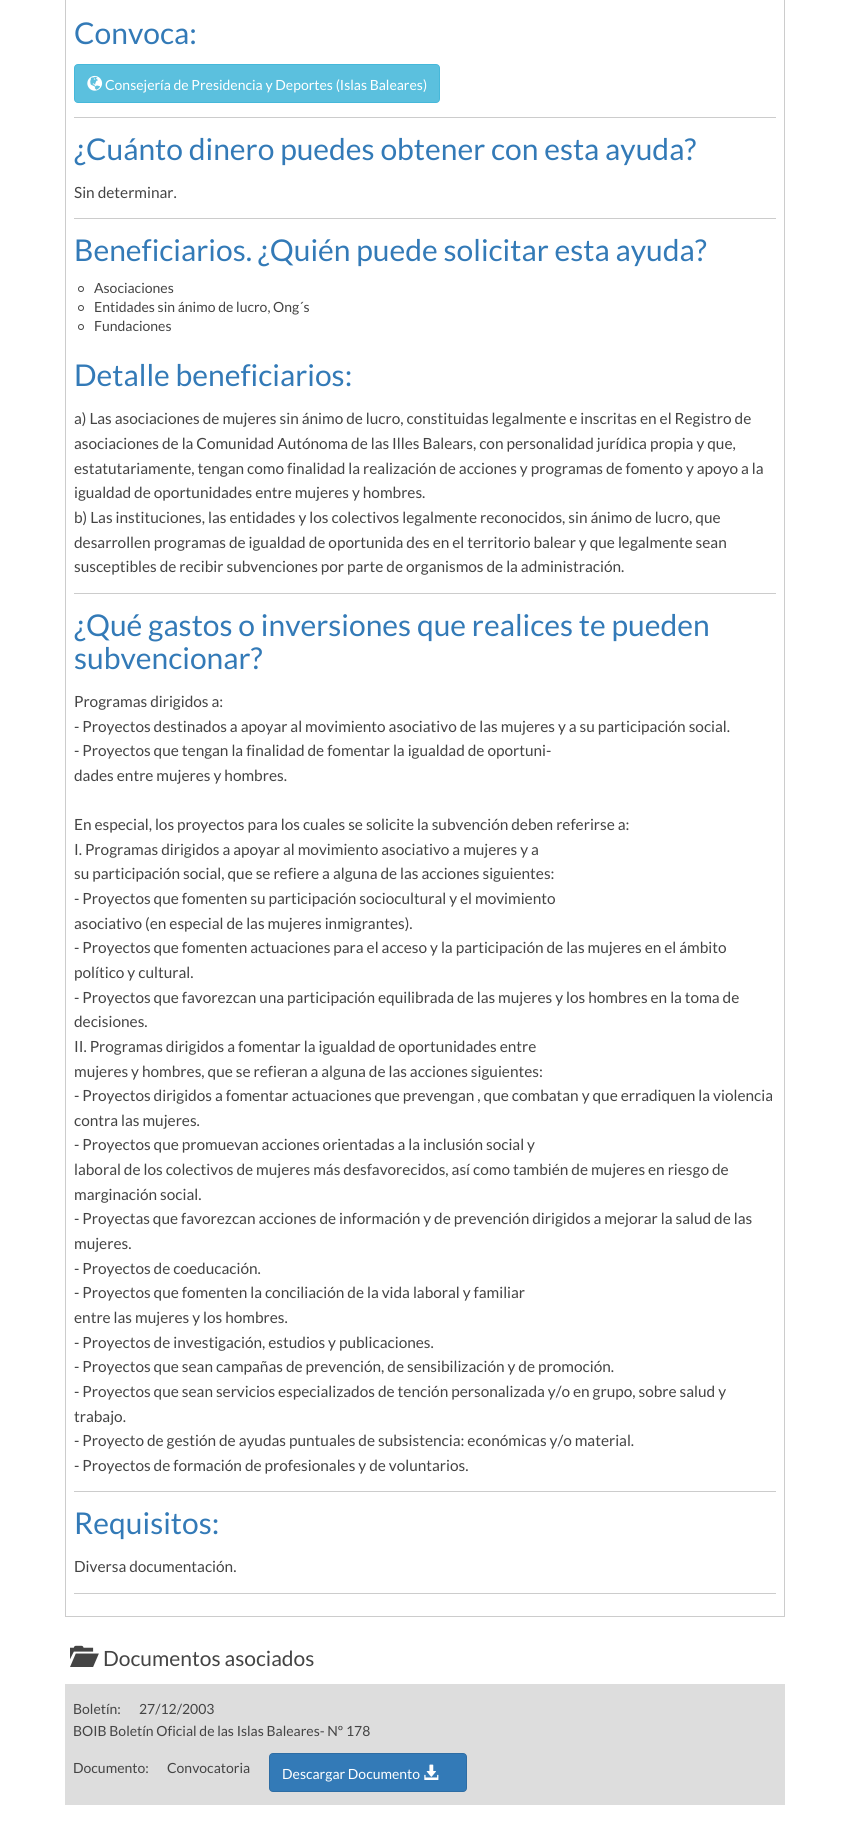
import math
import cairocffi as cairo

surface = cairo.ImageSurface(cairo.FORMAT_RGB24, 849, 1824)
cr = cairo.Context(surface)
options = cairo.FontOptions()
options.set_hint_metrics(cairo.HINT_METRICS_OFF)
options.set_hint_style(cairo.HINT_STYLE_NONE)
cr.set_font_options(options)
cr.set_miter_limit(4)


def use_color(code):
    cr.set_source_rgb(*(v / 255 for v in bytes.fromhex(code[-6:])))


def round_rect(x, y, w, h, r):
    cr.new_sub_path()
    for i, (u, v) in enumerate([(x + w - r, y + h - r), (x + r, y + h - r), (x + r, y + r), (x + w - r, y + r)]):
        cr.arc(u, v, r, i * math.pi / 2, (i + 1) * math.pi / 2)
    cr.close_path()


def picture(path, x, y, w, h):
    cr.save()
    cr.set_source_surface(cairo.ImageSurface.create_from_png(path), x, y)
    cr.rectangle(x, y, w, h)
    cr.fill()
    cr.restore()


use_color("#ffffff")
cr.paint()
cr.rectangle(65.5, -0.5, 719, 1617)
use_color("#cccccc")
cr.set_line_width(1)
cr.stroke()
cr.select_font_face("Lato")
cr.set_font_size(30)
use_color("#337ab7")
cr.move_to(74, 44)
cr.show_text("Convoca:")
use_color("#5bc0de")
round_rect(74.5, 64.5, 365, 38, 3.5)
cr.fill_preserve()
use_color("#46b8da")
cr.stroke()
picture("img1.png", 87, 75, 16, 16)
cr.set_font_size(14)
use_color("#ffffff")
cr.move_to(105, 90)
cr.show_text("Consejería de Presidencia y Deportes (Islas Baleares)")
use_color("#cccccc")
cr.rectangle(74, 117, 702, 1)
cr.fill()
cr.set_font_size(30)
use_color("#337ab7")
cr.move_to(74, 160)
cr.show_text("¿Cuánto dinero puedes obtener con esta ayuda?")
cr.set_font_size(15.4)
use_color("#444444")
cr.move_to(74, 198)
cr.show_text("Sin determinar.")
use_color("#cccccc")
cr.rectangle(74, 218, 702, 1)
cr.fill()
cr.set_font_size(30)
use_color("#337ab7")
cr.move_to(74, 261)
cr.show_text("Beneficiarios. ¿Quién puede solicitar esta ayuda?")
cr.new_path()
cr.arc(81, 289, 2.5, 0, 2 * math.pi)
use_color("#444444")
cr.stroke()
cr.set_font_size(14)
cr.move_to(94, 293)
cr.show_text("Asociaciones")
cr.new_path()
cr.arc(81, 308, 2.5, 0, 2 * math.pi)
cr.stroke()
cr.move_to(94, 312)
cr.show_text("Entidades sin ánimo de lucro, Ong´s")
cr.new_path()
cr.arc(81, 327, 2.5, 0, 2 * math.pi)
cr.stroke()
cr.move_to(94, 331)
cr.show_text("Fundaciones")
cr.set_font_size(30)
use_color("#337ab7")
cr.move_to(74, 386)
cr.show_text("Detalle beneficiarios:")
cr.set_font_size(15.4)
use_color("#444444")
cr.move_to(74, 424)
cr.show_text("a) Las asociaciones de mujeres sin ánimo de lucro, constituidas legalmente e inscritas en el Registro de")
cr.move_to(74, 449)
cr.show_text("asociaciones de la Comunidad Autónoma de las Illes Balears, con personalidad jurídica propia y que,")
cr.move_to(74, 474)
cr.show_text("estatutariamente, tengan como finalidad la realización de acciones y programas de fomento y apoyo a la")
cr.move_to(74, 498)
cr.show_text("igualdad de oportunidades entre mujeres y hombres.")
cr.move_to(74, 523)
cr.show_text("b) Las instituciones, las entidades y los colectivos legalmente reconocidos, sin ánimo de lucro, que")
cr.move_to(74, 548)
cr.show_text("desarrollen programas de igualdad de oportunida des en el territorio balear y que legalmente sean")
cr.move_to(74, 572)
cr.show_text("susceptibles de recibir subvenciones por parte de organismos de la administración.")
use_color("#cccccc")
cr.rectangle(74, 593, 702, 1)
cr.fill()
cr.set_font_size(30)
use_color("#337ab7")
cr.move_to(74, 636)
cr.show_text("¿Qué gastos o inversiones que realices te pueden")
cr.move_to(74, 669)
cr.show_text("subvencionar?")
cr.set_font_size(15.4)
use_color("#444444")
cr.move_to(74, 707)
cr.show_text("Programas dirigidos a:")
cr.move_to(74, 732)
cr.show_text("- Proyectos destinados a apoyar al movimiento asociativo de las mujeres y a su participación social.")
cr.move_to(74, 756)
cr.show_text("- Proyectos que tengan la finalidad de fomentar la igualdad de oportuni-")
cr.move_to(74, 781)
cr.show_text("dades entre mujeres y hombres.")
cr.move_to(74, 830)
cr.show_text("En especial, los proyectos para los cuales se solicite la subvención deben referirse a:")
cr.move_to(74, 855)
cr.show_text("I. Programas dirigidos a apoyar al movimiento asociativo a mujeres y a")
cr.move_to(74, 879)
cr.show_text("su participación social, que se refiere a alguna de las acciones siguientes:")
cr.move_to(74, 904)
cr.show_text("- Proyectos que fomenten su participación sociocultural y el movimiento")
cr.move_to(74, 929)
cr.show_text("asociativo (en especial de las mujeres inmigrantes).")
cr.move_to(74, 953)
cr.show_text("- Proyectos que fomenten actuaciones para el acceso y la participación de las mujeres en el ámbito")
cr.move_to(74, 978)
cr.show_text("político y cultural.")
cr.move_to(74, 1003)
cr.show_text("- Proyectos que favorezcan una participación equilibrada de las mujeres y los hombres en la toma de")
cr.move_to(74, 1027)
cr.show_text("decisiones.")
cr.move_to(74, 1052)
cr.show_text("II. Programas dirigidos a fomentar la igualdad de oportunidades entre")
cr.move_to(74, 1077)
cr.show_text("mujeres y hombres, que se refieran a alguna de las acciones siguientes:")
cr.move_to(74, 1101)
cr.show_text("- Proyectos dirigidos a fomentar actuaciones que prevengan , que combatan y que erradiquen la violencia")
cr.move_to(74, 1126)
cr.show_text("contra las mujeres.")
cr.move_to(74, 1150)
cr.show_text("- Proyectos que promuevan acciones orientadas a la inclusión social y")
cr.move_to(74, 1175)
cr.show_text("laboral de los colectivos de mujeres más desfavorecidos, así como también de mujeres en riesgo de")
cr.move_to(74, 1200)
cr.show_text("marginación social.")
cr.move_to(74, 1224)
cr.show_text("- Proyectas que favorezcan acciones de información y de prevención dirigidos a mejorar la salud de las")
cr.move_to(74, 1249)
cr.show_text("mujeres.")
cr.move_to(74, 1274)
cr.show_text("- Proyectos de coeducación.")
cr.move_to(74, 1298)
cr.show_text("- Proyectos que fomenten la conciliación de la vida laboral y familiar")
cr.move_to(74, 1323)
cr.show_text("entre las mujeres y los hombres.")
cr.move_to(74, 1348)
cr.show_text("- Proyectos de investigación, estudios y publicaciones.")
cr.move_to(74, 1372)
cr.show_text("- Proyectos que sean campañas de prevención, de sensibilización y de promoción.")
cr.move_to(74, 1397)
cr.show_text("- Proyectos que sean servicios especializados de tención personalizada y/o en grupo, sobre salud y")
cr.move_to(74, 1422)
cr.show_text("trabajo.")
cr.move_to(74, 1446)
cr.show_text("- Proyecto de gestión de ayudas puntuales de subsistencia: económicas y/o material.")
cr.move_to(74, 1471)
cr.show_text("- Proyectos de formación de profesionales y de voluntarios.")
use_color("#cccccc")
cr.rectangle(74, 1491, 702, 1)
cr.fill()
cr.set_font_size(30)
use_color("#337ab7")
cr.move_to(74, 1534)
cr.show_text("Requisitos:")
cr.set_font_size(15.4)
use_color("#444444")
cr.move_to(74, 1572)
cr.show_text("Diversa documentación.")
use_color("#cccccc")
cr.rectangle(74, 1593, 702, 1)
cr.fill()
picture("img2.png", 70, 1645, 29, 22)
cr.set_font_size(21)
use_color("#444444")
cr.move_to(103, 1666)
cr.show_text("Documentos asociados")
use_color("#dddddd")
cr.rectangle(65, 1684, 720, 121)
cr.fill()
cr.set_font_size(14)
use_color("#444444")
cr.move_to(73, 1714)
cr.show_text("Boletín:")
cr.move_to(139, 1714)
cr.show_text("27/12/2003")
cr.move_to(73, 1736)
cr.show_text("BOIB Boletín Oficial de las Islas Baleares- Nº 178")
cr.move_to(73, 1773)
cr.show_text("Documento:")
cr.move_to(167, 1773)
cr.show_text("Convocatoria")
use_color("#337ab7")
round_rect(269.5, 1753.5, 197, 38, 3.5)
cr.fill_preserve()
use_color("#2e6da4")
cr.stroke()
use_color("#ffffff")
cr.move_to(282, 1779)
cr.show_text("Descargar Documento")
picture("img3.png", 424, 1764, 15, 16)
surface.write_to_png("result.png")
